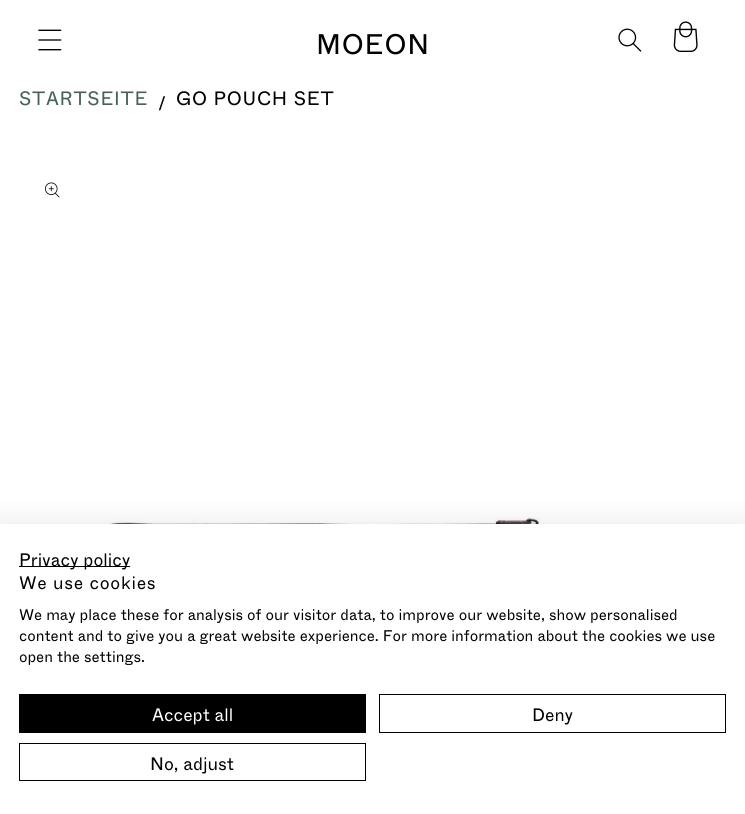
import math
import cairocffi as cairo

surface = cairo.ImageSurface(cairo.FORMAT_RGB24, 745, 814)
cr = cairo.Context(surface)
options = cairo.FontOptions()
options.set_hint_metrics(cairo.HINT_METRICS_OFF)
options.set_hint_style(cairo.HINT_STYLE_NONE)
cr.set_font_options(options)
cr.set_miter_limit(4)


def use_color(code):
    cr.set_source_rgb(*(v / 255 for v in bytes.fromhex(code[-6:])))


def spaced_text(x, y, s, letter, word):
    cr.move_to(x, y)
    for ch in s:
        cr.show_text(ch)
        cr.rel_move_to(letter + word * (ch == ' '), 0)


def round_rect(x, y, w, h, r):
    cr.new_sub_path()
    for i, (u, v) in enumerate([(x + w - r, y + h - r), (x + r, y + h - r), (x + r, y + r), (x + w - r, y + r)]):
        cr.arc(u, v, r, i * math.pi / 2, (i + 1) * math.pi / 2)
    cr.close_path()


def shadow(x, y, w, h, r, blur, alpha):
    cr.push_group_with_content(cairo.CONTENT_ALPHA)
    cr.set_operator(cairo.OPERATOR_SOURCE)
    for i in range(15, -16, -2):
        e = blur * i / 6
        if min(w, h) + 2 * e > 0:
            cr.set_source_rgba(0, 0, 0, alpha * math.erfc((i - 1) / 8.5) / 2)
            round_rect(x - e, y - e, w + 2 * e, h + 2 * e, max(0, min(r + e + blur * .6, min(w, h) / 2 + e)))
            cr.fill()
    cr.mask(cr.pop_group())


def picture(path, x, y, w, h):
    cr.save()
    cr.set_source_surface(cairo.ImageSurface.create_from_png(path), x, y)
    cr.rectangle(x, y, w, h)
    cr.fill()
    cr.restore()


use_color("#ffffff")
cr.paint()
picture("img1.png", 38, 29, 24, 22)
cr.select_font_face("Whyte")
cr.set_font_size(27.5)
use_color("#000000")
spaced_text(316, 54, "MOEON", 0.75, 0)
picture("img2.png", 618, 28, 24, 24)
picture("img3.png", 673, 21, 25, 31)
cr.set_font_size(18.75)
use_color("#476154")
spaced_text(19, 105, "STARTSEITE", 0.75, 0)
use_color("#000000")
spaced_text(158, 110, "/", 0.75, 0)
spaced_text(176, 105, "GO POUCH SET", 0.75, 0)
picture("img4.png", 45, 182, 15, 16)
picture("img5.png", 85, 517, 589, 7)
use_color("#000000")
shadow(0, 524, 745, 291, 0, 15, 0.1)
use_color("#ffffff")
cr.rectangle(0, 524, 745, 290)
cr.fill()
use_color("#000000")
cr.rectangle(19, 566, 111, 1)
cr.fill()
cr.set_font_size(17.5)
cr.move_to(19, 566)
cr.show_text("Privacy policy")
spaced_text(19, 589, "We use cookies", 0.75, 0)
cr.set_font_size(15)
cr.move_to(19, 620)
cr.show_text("We may place these for analysis of our visitor data, to improve our website, show personalised")
cr.move_to(19, 641)
cr.show_text("content and to give you a great website experience. For more information about the cookies we use")
cr.move_to(19, 662)
cr.show_text("open the settings.")
cr.rectangle(19, 694, 347, 39)
cr.fill()
cr.set_font_size(17.5)
use_color("#ffffff")
cr.move_to(152, 721)
cr.show_text("Accept all")
cr.rectangle(379.5, 694.5, 346, 38)
use_color("#000000")
cr.set_line_width(1)
cr.stroke()
cr.move_to(532, 721)
cr.show_text("Deny")
cr.rectangle(19.5, 743.5, 346, 37)
cr.stroke()
cr.move_to(150, 770)
cr.show_text("No, adjust")
surface.write_to_png("result.png")
